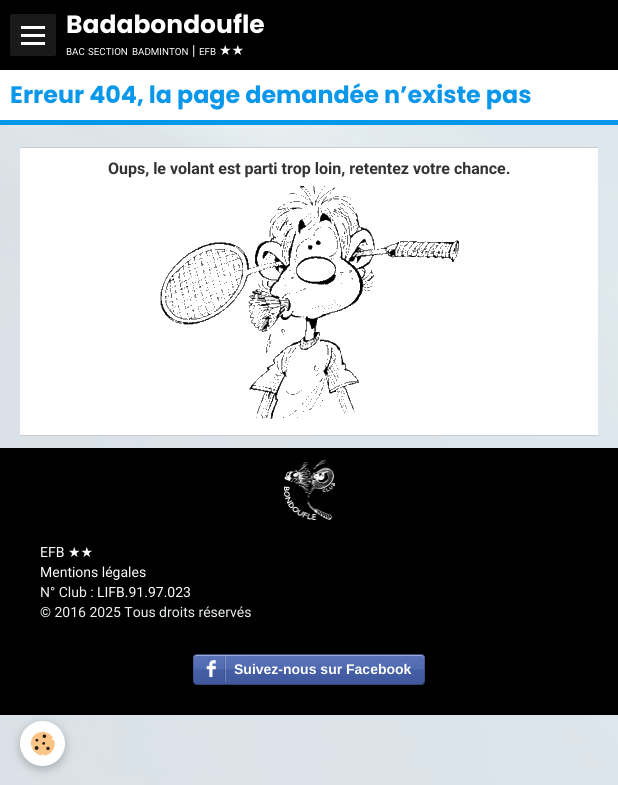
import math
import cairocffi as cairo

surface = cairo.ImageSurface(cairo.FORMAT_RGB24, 618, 785)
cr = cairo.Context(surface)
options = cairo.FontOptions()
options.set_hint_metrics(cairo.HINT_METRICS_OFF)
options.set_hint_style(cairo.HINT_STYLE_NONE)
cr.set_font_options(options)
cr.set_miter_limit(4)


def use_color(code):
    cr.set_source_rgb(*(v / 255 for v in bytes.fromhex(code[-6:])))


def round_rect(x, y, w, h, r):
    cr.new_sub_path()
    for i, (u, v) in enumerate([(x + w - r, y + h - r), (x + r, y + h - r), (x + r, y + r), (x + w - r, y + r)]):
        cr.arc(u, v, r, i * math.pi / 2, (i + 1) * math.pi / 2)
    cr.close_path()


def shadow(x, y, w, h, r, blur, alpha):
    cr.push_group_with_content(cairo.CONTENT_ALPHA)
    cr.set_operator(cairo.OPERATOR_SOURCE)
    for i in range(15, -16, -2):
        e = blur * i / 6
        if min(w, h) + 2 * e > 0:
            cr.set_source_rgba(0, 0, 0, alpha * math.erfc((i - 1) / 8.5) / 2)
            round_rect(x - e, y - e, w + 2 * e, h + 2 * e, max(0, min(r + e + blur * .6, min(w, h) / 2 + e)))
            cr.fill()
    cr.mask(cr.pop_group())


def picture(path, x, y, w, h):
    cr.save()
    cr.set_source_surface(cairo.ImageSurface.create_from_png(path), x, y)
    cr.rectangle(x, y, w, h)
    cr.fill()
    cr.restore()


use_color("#eeeeee")
cr.paint()
picture("img1.png", 0, 125, 618, 660)
use_color("#000000")
cr.rectangle(0, 0, 618, 70)
cr.fill()
use_color("#1a1a1a")
round_rect(10, 14, 46, 42, 2)
cr.fill()
use_color("#ffffff")
cr.rectangle(21, 34, 24, 3)
cr.fill()
cr.rectangle(21, 26, 24, 3)
cr.fill()
cr.rectangle(21, 42, 24, 3)
cr.fill()
cr.select_font_face("Poppins", cairo.FONT_SLANT_NORMAL, cairo.FONT_WEIGHT_BOLD)
cr.set_font_size(25)
cr.move_to(66, 33)
cr.show_text("Badabondoufle")
cr.select_font_face("Roboto")
cr.set_font_size(9.75)
cr.move_to(66, 55)
cr.show_text("BAC")
cr.move_to(88, 55)
cr.show_text("SECTION")
cr.move_to(132, 55)
cr.show_text("BADMINTON")
cr.set_font_size(14)
cr.move_to(192, 55)
cr.show_text("|")
cr.set_font_size(9.75)
cr.move_to(199, 55)
cr.show_text("EFB")
cr.select_font_face("DejaVu Sans")
cr.set_font_size(14)
cr.move_to(219, 55)
cr.show_text("★★")
cr.rectangle(0, 70, 618, 50)
cr.fill()
use_color("#0897ea")
cr.rectangle(0, 120, 618, 5)
cr.fill()
cr.select_font_face("Poppins", cairo.FONT_SLANT_NORMAL, cairo.FONT_WEIGHT_BOLD)
cr.set_font_size(23.8)
cr.move_to(10, 103)
cr.show_text("Erreur 404, la page demandée n’existe pas")
use_color("#ffffff")
cr.rectangle(20, 148, 578, 287)
cr.fill()
use_color("#cccccc")
cr.rectangle(20, 147, 578, 1)
cr.fill()
cr.rectangle(20, 435, 578, 1)
cr.fill()
cr.select_font_face("Roboto", cairo.FONT_SLANT_NORMAL, cairo.FONT_WEIGHT_BOLD)
cr.set_font_size(16)
use_color("#333333")
cr.move_to(108, 174)
cr.show_text("Oups, le volant est parti trop loin, retentez votre chance.")
picture("img2.png", 160, 186, 299, 233)
use_color("#000000")
cr.rectangle(0, 448, 618, 267)
cr.fill()
picture("img3.png", 284, 460, 51, 60)
cr.select_font_face("Roboto")
cr.set_font_size(14)
use_color("#ffffff")
cr.move_to(40, 557)
cr.show_text("EFB")
cr.select_font_face("DejaVu Sans")
cr.move_to(68, 557)
cr.show_text("★★")
cr.select_font_face("Roboto")
cr.move_to(40, 577)
cr.show_text("Mentions légales")
use_color("#ecf0f1")
cr.move_to(40, 597)
cr.show_text("N° Club :")
use_color("#ffffff")
cr.move_to(97, 597)
cr.show_text("LIFB.91.97.023")
use_color("#ecf0f1")
cr.move_to(40, 617)
cr.show_text("© 2016 2025 Tous droits réservés")
use_color("#4863ae")
round_rect(193, 654, 232, 31, 4)
cr.fill()
cr.save()
round_rect(193, 654, 232, 31, 4)
cr.clip()
gradient = cairo.LinearGradient(309, 626, 309, 655)
gradient.add_color_stop_rgba(0, 1, 1, 1, 0.1)
gradient.add_color_stop_rgba(0.49, 1, 1, 1, 0.05)
gradient.add_color_stop_rgba(0.51, 0, 0, 0, 0.05)
gradient.add_color_stop_rgba(1, 0, 0, 0, 0.1)
cr.set_source(gradient)
cr.rectangle(193, 654, 232, 1)
cr.fill()
gradient = cairo.LinearGradient(309, 655, 309, 684)
gradient.add_color_stop_rgba(0, 1, 1, 1, 0.1)
gradient.add_color_stop_rgba(0.49, 1, 1, 1, 0.05)
gradient.add_color_stop_rgba(0.51, 0, 0, 0, 0.05)
gradient.add_color_stop_rgba(1, 0, 0, 0, 0.1)
cr.set_source(gradient)
cr.rectangle(193, 655, 232, 29)
cr.fill()
gradient = cairo.LinearGradient(309, 684, 309, 713)
gradient.add_color_stop_rgba(0, 1, 1, 1, 0.1)
gradient.add_color_stop_rgba(0.49, 1, 1, 1, 0.05)
gradient.add_color_stop_rgba(0.51, 0, 0, 0, 0.05)
gradient.add_color_stop_rgba(1, 0, 0, 0, 0.1)
cr.set_source(gradient)
cr.rectangle(193, 684, 232, 1)
cr.fill()
cr.restore()
use_color("#9cabd3")
cr.new_path()
cr.move_to(197, 656)
cr.line_to(421, 656)
cr.curve_to(423, 656, 424, 658, 424, 659)
cr.curve_to(424, 657, 423, 655, 421, 655)
cr.line_to(197, 655)
cr.curve_to(195, 655, 194, 657, 194, 659)
cr.curve_to(194, 658, 195, 656, 197, 656)
cr.close_path()
cr.fill()
cr.new_path()
cr.move_to(423.5, 683.5)
cr.curve_to(422.5, 684, 422, 684.5, 421, 684.5)
cr.line_to(197, 684.5)
cr.curve_to(196, 684.5, 195.5, 684, 194.5, 683.5)
cr.set_source_rgba(0, 0, 0, 0.4)
cr.set_line_width(1)
cr.stroke()
cr.new_path()
cr.move_to(194.5, 683.5)
cr.curve_to(192, 681, 193.5, 669, 193.5, 665.5)
cr.curve_to(193.5, 663, 192, 654.5, 197, 654.5)
cr.line_to(421, 654.5)
cr.curve_to(426, 654.5, 424.5, 663, 424.5, 665.5)
cr.curve_to(424.5, 669, 426, 681, 423.5, 683.5)
cr.set_source_rgba(0, 0, 0, 0.2)
cr.stroke()
cr.set_source_rgba(1, 1, 1, 0.25)
cr.rectangle(225, 655, 1, 27)
cr.fill()
cr.set_source_rgba(0, 0, 0, 0.1)
cr.rectangle(224, 655, 1, 27)
cr.fill()
picture("img4.png", 206, 660, 10, 17)
cr.select_font_face("Liberation Sans", cairo.FONT_SLANT_NORMAL, cairo.FONT_WEIGHT_BOLD)
use_color("#ffffff")
cr.move_to(234, 674)
cr.show_text("Suivez-nous sur Facebook")
use_color("#000000")
shadow(20, 724, 45, 45, 22.5, 5, 0.24)
use_color("#ffffff")
cr.arc(42.5, 743.5, 22.5, 0, 2 * math.pi)
cr.fill()
picture("img5.png", 30, 731, 25, 25)
surface.write_to_png("result.png")
